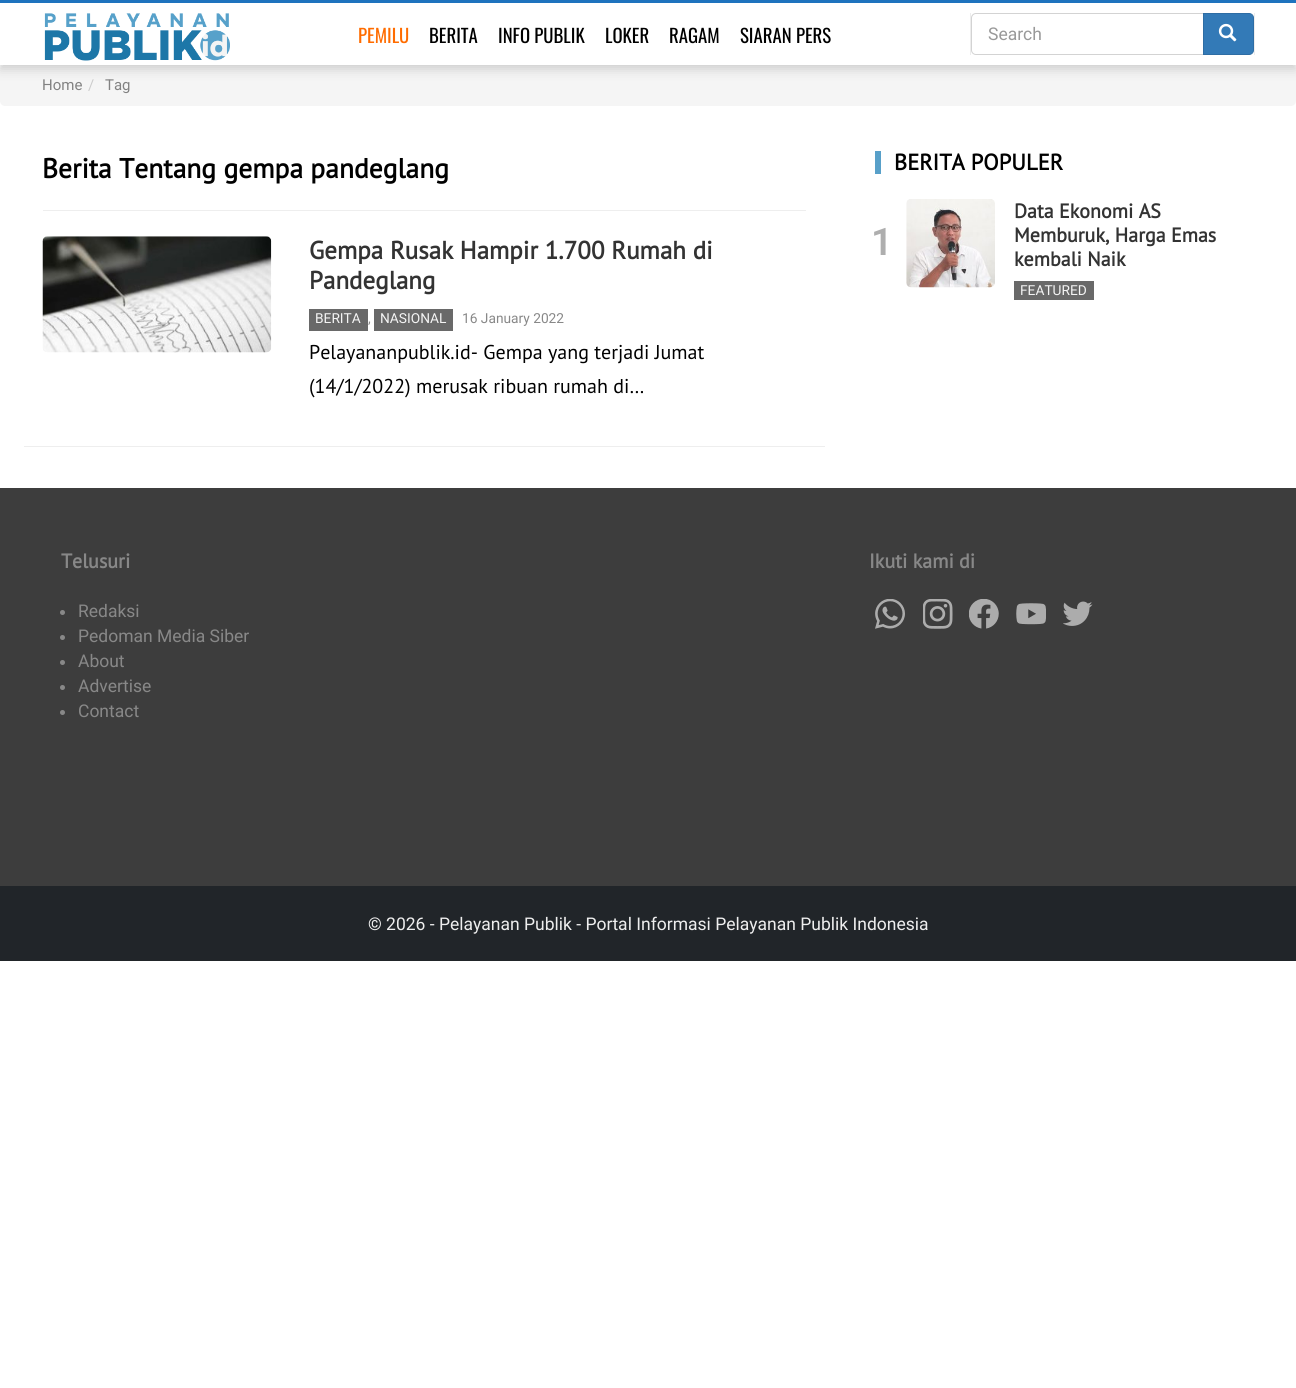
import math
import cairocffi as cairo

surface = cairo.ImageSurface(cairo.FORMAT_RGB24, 1296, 1388)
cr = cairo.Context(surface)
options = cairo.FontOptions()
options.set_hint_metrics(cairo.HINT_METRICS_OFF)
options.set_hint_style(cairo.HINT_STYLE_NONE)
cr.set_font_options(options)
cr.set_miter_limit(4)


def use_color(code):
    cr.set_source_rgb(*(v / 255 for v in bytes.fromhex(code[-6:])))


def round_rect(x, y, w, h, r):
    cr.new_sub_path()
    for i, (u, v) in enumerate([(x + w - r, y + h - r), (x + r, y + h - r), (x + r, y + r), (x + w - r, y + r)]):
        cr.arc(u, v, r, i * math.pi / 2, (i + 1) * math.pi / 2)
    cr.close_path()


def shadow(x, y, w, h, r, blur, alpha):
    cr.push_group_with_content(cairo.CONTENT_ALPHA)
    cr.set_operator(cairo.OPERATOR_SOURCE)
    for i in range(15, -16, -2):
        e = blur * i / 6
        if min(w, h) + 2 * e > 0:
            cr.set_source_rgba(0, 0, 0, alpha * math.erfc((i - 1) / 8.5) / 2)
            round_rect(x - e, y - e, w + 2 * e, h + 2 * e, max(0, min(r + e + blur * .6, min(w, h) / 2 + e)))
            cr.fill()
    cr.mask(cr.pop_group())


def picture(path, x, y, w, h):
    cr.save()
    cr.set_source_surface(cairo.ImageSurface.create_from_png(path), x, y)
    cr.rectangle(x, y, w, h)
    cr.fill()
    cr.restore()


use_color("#ffffff")
cr.paint()
use_color("#f5f5f5")
round_rect(0, 65, 1296, 41, 5)
cr.fill()
cr.save()
cr.rectangle(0, 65, 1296, 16)
cr.clip()
use_color("#cccccc")
shadow(0, 4, 1296, 65, 0, 6, 1)
cr.restore()
use_color("#1e73be")
cr.rectangle(0, 0, 1296, 3)
cr.fill()
picture("img1.png", 44, 13, 186, 48)
cr.select_font_face("Oswald")
cr.set_font_size(18.75)
use_color("#ff6c00")
cr.move_to(358, 43)
cr.show_text("PEMILU")
use_color("#000000")
cr.move_to(429, 43)
cr.show_text("BERITA")
cr.move_to(498, 43)
cr.show_text("INFO PUBLIK")
cr.move_to(605, 43)
cr.show_text("LOKER")
cr.move_to(669, 43)
cr.show_text("RAGAM")
cr.move_to(740, 43)
cr.show_text("SIARAN PERS")
use_color("#ededed")
cr.rectangle(1254, 13, 1, 42)
cr.fill()
cr.rectangle(970, 13, 1, 42)
cr.fill()
cr.new_path()
cr.move_to(976, 13.5)
cr.line_to(1203.5, 13.5)
cr.line_to(1203.5, 54.5)
cr.line_to(976, 54.5)
cr.curve_to(973.5, 54.5, 971.5, 52.5, 971.5, 50)
cr.line_to(971.5, 18)
cr.curve_to(971.5, 15.5, 973.5, 13.5, 976, 13.5)
cr.close_path()
use_color("#d3d3d3")
cr.set_line_width(1)
cr.stroke()
cr.select_font_face("Roboto")
cr.set_font_size(17.5)
use_color("#999999")
cr.move_to(988, 40)
cr.show_text("Search")
use_color("#337ab7")
cr.new_path()
cr.move_to(1203.5, 13.5)
cr.line_to(1249, 13.5)
cr.curve_to(1251.5, 13.5, 1253.5, 15.5, 1253.5, 18)
cr.line_to(1253.5, 50)
cr.curve_to(1253.5, 52.5, 1251.5, 54.5, 1249, 54.5)
cr.line_to(1203.5, 54.5)
cr.close_path()
cr.fill_preserve()
use_color("#2e6da4")
cr.stroke()
picture("img2.png", 1218, 23, 19, 19)
cr.set_font_size(15)
use_color("#828282")
cr.move_to(42, 90)
cr.show_text("Home")
use_color("#cccccc")
cr.move_to(88, 90)
cr.show_text("/")
use_color("#828282")
cr.move_to(105, 90)
cr.show_text("Tag")
use_color("#eeeeee")
cr.rectangle(43, 210, 763, 1)
cr.fill()
cr.select_font_face("PT Sans", cairo.FONT_SLANT_NORMAL, cairo.FONT_WEIGHT_BOLD)
cr.set_font_size(27.5)
use_color("#000000")
cr.move_to(42, 178)
cr.show_text("Berita Tentang gempa pandeglang")
use_color("#eeeeee")
cr.rectangle(24, 446, 801, 1)
cr.fill()
picture("img3.png", 42, 236, 230, 117)
cr.set_font_size(25)
use_color("#333333")
cr.move_to(309, 259)
cr.show_text("Gempa Rusak Hampir 1.700 Rumah di")
cr.move_to(309, 289)
cr.show_text("Pandeglang")
use_color("#696969")
cr.rectangle(309, 309, 59, 22)
cr.fill()
cr.select_font_face("Roboto")
cr.set_font_size(13.75)
use_color("#f4f4f4")
cr.move_to(315, 323)
cr.show_text("BERITA")
use_color("#888888")
cr.move_to(368, 323)
cr.show_text(",")
use_color("#696969")
cr.rectangle(374, 309, 79, 22)
cr.fill()
use_color("#f4f4f4")
cr.move_to(380, 323)
cr.show_text("NASIONAL")
use_color("#888888")
cr.move_to(462, 323)
cr.show_text("16 January 2022")
cr.select_font_face("PT Sans")
cr.set_font_size(20)
use_color("#000000")
cr.move_to(309, 359)
cr.show_text("Pelayananpublik.id- Gempa yang terjadi Jumat")
cr.move_to(309, 393)
cr.show_text("(14/1/2022) merusak ribuan rumah di…")
use_color("#58a0c9")
cr.rectangle(875, 151, 6, 23)
cr.fill()
cr.select_font_face("PT Sans", cairo.FONT_SLANT_NORMAL, cairo.FONT_WEIGHT_BOLD)
cr.set_font_size(22.5)
use_color("#000000")
cr.move_to(894, 170)
cr.show_text("BERITA POPULER")
cr.select_font_face("Roboto SemiBold")
cr.set_font_size(38)
use_color("#aeaeae")
cr.move_to(871, 255)
cr.show_text("1")
picture("img4.png", 906, 199, 89, 89)
cr.select_font_face("PT Sans", cairo.FONT_SLANT_NORMAL, cairo.FONT_WEIGHT_BOLD)
cr.set_font_size(20)
use_color("#333333")
cr.move_to(1014, 218)
cr.show_text("Data Ekonomi AS")
cr.move_to(1014, 242)
cr.show_text("Memburuk, Harga Emas")
cr.move_to(1014, 266)
cr.show_text("kembali Naik")
use_color("#696969")
cr.rectangle(1014, 281, 80, 19)
cr.fill()
cr.select_font_face("Roboto")
cr.set_font_size(13.75)
use_color("#f4f4f4")
cr.move_to(1020, 295)
cr.show_text("FEATURED")
use_color("#3d3d3d")
cr.rectangle(0, 488, 1296, 398)
cr.fill()
cr.select_font_face("PT Sans", cairo.FONT_SLANT_NORMAL, cairo.FONT_WEIGHT_BOLD)
cr.set_font_size(20)
use_color("#888888")
cr.move_to(61, 568)
cr.show_text("Telusuri")
cr.new_path()
cr.arc(62.5, 612.5, 2.5, 0, 2 * math.pi)
cr.fill()
cr.select_font_face("Roboto")
cr.set_font_size(17.5)
cr.move_to(78, 617)
cr.show_text("Redaksi")
cr.new_path()
cr.arc(62.5, 637.5, 2.5, 0, 2 * math.pi)
cr.fill()
cr.move_to(78, 642)
cr.show_text("Pedoman Media Siber")
cr.new_path()
cr.arc(62.5, 662.5, 2.5, 0, 2 * math.pi)
cr.fill()
cr.move_to(78, 667)
cr.show_text("About")
cr.new_path()
cr.arc(62.5, 687.5, 2.5, 0, 2 * math.pi)
cr.fill()
cr.move_to(78, 692)
cr.show_text("Advertise")
cr.new_path()
cr.arc(62.5, 712.5, 2.5, 0, 2 * math.pi)
cr.fill()
cr.move_to(78, 717)
cr.show_text("Contact")
cr.select_font_face("PT Sans", cairo.FONT_SLANT_NORMAL, cairo.FONT_WEIGHT_BOLD)
cr.set_font_size(20)
cr.move_to(869, 568)
cr.show_text("Ikuti kami di")
picture("img5.png", 875, 599, 30, 30)
picture("img6.png", 923, 599, 30, 30)
picture("img7.png", 969, 599, 30, 30)
picture("img8.png", 1016, 603, 30, 22)
picture("img9.png", 1063, 601, 30, 25)
use_color("#212529")
cr.rectangle(0, 886, 1296, 75)
cr.fill()
cr.select_font_face("Roboto")
cr.set_font_size(17.5)
use_color("#eeeeee")
cr.move_to(368, 930)
cr.show_text("© 2026 - Pelayanan Publik - Portal Informasi Pelayanan Publik Indonesia")
surface.write_to_png("result.png")
